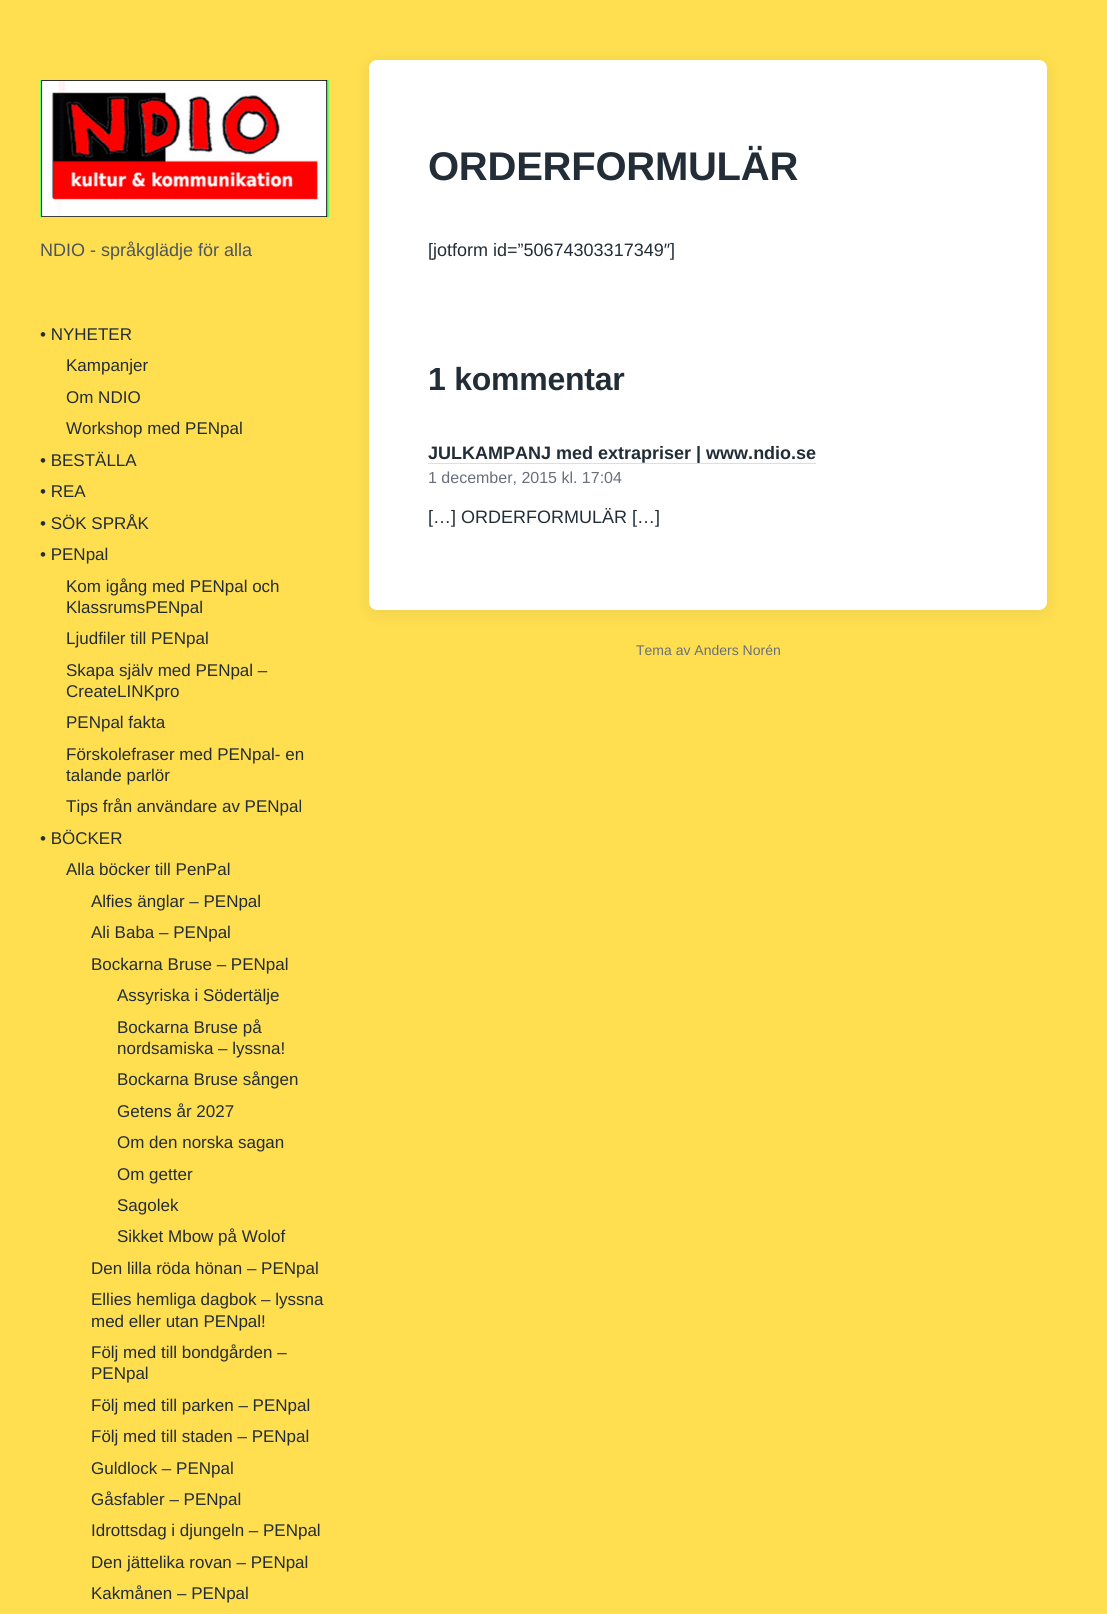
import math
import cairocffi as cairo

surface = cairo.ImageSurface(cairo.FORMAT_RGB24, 1107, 1614)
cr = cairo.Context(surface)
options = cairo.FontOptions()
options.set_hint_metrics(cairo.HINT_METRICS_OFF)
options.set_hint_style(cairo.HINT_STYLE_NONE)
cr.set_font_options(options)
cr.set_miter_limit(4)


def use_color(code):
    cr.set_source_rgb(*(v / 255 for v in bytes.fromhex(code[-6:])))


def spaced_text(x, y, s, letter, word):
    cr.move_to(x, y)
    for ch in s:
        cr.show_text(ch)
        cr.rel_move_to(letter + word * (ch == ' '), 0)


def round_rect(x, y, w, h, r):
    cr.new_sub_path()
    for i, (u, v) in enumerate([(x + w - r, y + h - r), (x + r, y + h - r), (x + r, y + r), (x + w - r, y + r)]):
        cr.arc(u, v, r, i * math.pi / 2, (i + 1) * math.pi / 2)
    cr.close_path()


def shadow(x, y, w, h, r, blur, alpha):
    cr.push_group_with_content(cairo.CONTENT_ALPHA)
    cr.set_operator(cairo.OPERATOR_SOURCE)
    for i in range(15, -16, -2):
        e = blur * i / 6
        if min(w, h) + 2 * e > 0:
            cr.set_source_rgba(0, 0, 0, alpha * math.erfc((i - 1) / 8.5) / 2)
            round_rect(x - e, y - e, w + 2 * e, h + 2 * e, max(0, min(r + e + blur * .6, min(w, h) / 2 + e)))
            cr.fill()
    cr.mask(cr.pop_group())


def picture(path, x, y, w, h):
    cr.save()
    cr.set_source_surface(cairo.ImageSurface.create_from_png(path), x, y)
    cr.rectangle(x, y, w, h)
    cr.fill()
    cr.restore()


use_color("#ffde4f")
cr.paint()
picture("img1.png", 40, 80, 289, 137)
cr.select_font_face("Liberation Sans")
cr.set_font_size(18)
use_color("#4b555f")
cr.move_to(40, 256)
cr.show_text("NDIO - språkglädje för alla")
cr.set_font_size(17)
use_color("#232d37")
cr.move_to(40, 340)
cr.show_text("• NYHETER")
cr.move_to(66, 371)
cr.show_text("Kampanjer")
cr.move_to(66, 403)
cr.show_text("Om NDIO")
cr.move_to(66, 434)
cr.show_text("Workshop med PENpal")
cr.move_to(40, 466)
cr.show_text("• BESTÄLLA")
cr.move_to(40, 497)
cr.show_text("• REA")
cr.move_to(40, 529)
cr.show_text("• SÖK SPRÅK")
cr.move_to(40, 560)
cr.show_text("• PENpal")
cr.move_to(66, 592)
cr.show_text("Kom igång med PENpal och")
cr.move_to(66, 613)
cr.show_text("KlassrumsPENpal")
cr.move_to(66, 644)
cr.show_text("Ljudfiler till PENpal")
cr.move_to(66, 676)
cr.show_text("Skapa själv med PENpal –")
cr.move_to(66, 697)
cr.show_text("CreateLINKpro")
cr.move_to(66, 728)
cr.show_text("PENpal fakta")
cr.move_to(66, 760)
cr.show_text("Förskolefraser med PENpal- en")
cr.move_to(66, 781)
cr.show_text("talande parlör")
cr.move_to(66, 812)
cr.show_text("Tips från användare av PENpal")
cr.move_to(40, 844)
cr.show_text("• BÖCKER")
cr.move_to(66, 875)
cr.show_text("Alla böcker till PenPal")
cr.move_to(91, 907)
cr.show_text("Alfies änglar – PENpal")
cr.move_to(91, 938)
cr.show_text("Ali Baba – PENpal")
cr.move_to(91, 970)
cr.show_text("Bockarna Bruse – PENpal")
cr.move_to(117, 1001)
cr.show_text("Assyriska i Södertälje")
cr.move_to(117, 1033)
cr.show_text("Bockarna Bruse på")
cr.move_to(117, 1054)
cr.show_text("nordsamiska – lyssna!")
cr.move_to(117, 1085)
cr.show_text("Bockarna Bruse sången")
cr.move_to(117, 1117)
cr.show_text("Getens år 2027")
cr.move_to(117, 1148)
cr.show_text("Om den norska sagan")
cr.move_to(117, 1180)
cr.show_text("Om getter")
cr.move_to(117, 1211)
cr.show_text("Sagolek")
cr.move_to(117, 1242)
cr.show_text("Sikket Mbow på Wolof")
cr.move_to(91, 1274)
cr.show_text("Den lilla röda hönan – PENpal")
cr.move_to(91, 1305)
cr.show_text("Ellies hemliga dagbok – lyssna")
cr.move_to(91, 1327)
cr.show_text("med eller utan PENpal!")
cr.move_to(91, 1358)
cr.show_text("Följ med till bondgården –")
cr.move_to(91, 1379)
cr.show_text("PENpal")
cr.move_to(91, 1411)
cr.show_text("Följ med till parken – PENpal")
cr.move_to(91, 1442)
cr.show_text("Följ med till staden – PENpal")
cr.move_to(91, 1474)
cr.show_text("Guldlock – PENpal")
cr.move_to(91, 1505)
cr.show_text("Gåsfabler – PENpal")
cr.move_to(91, 1536)
cr.show_text("Idrottsdag i djungeln – PENpal")
cr.move_to(91, 1568)
cr.show_text("Den jättelika rovan – PENpal")
cr.move_to(91, 1599)
cr.show_text("Kakmånen – PENpal")
use_color("#050a0f")
shadow(369, 63, 678, 550, 8, 9, 0.07)
use_color("#ffffff")
round_rect(369, 60, 678, 550, 8)
cr.fill()
cr.select_font_face("Liberation Sans", cairo.FONT_SLANT_NORMAL, cairo.FONT_WEIGHT_BOLD)
cr.set_font_size(40)
use_color("#232d37")
spaced_text(428, 180, "ORDERFORMULÄR", -0.25, 0)
cr.select_font_face("Liberation Sans")
cr.set_font_size(18)
cr.move_to(428, 256)
cr.show_text("[jotform id=”50674303317349″]")
cr.select_font_face("Liberation Sans", cairo.FONT_SLANT_NORMAL, cairo.FONT_WEIGHT_BOLD)
cr.set_font_size(32)
spaced_text(428, 390, "1 kommentar", -0.25, 0)
cr.set_font_size(18)
cr.move_to(428, 459)
cr.show_text("JULKAMPANJ med extrapriser | www.ndio.se")
use_color("#dcdfe2")
cr.rectangle(428, 463, 388, 1)
cr.fill()
cr.select_font_face("Liberation Sans")
cr.set_font_size(16)
use_color("#68717b")
cr.move_to(428, 483)
cr.show_text("1 december, 2015 kl. 17:04")
cr.set_font_size(18)
use_color("#232d37")
cr.move_to(428, 523)
cr.show_text("[…] ORDERFORMULÄR […]")
cr.set_font_size(14)
use_color("#68717b")
cr.move_to(636, 655)
cr.show_text("Tema av Anders Norén")
surface.write_to_png("result.png")
